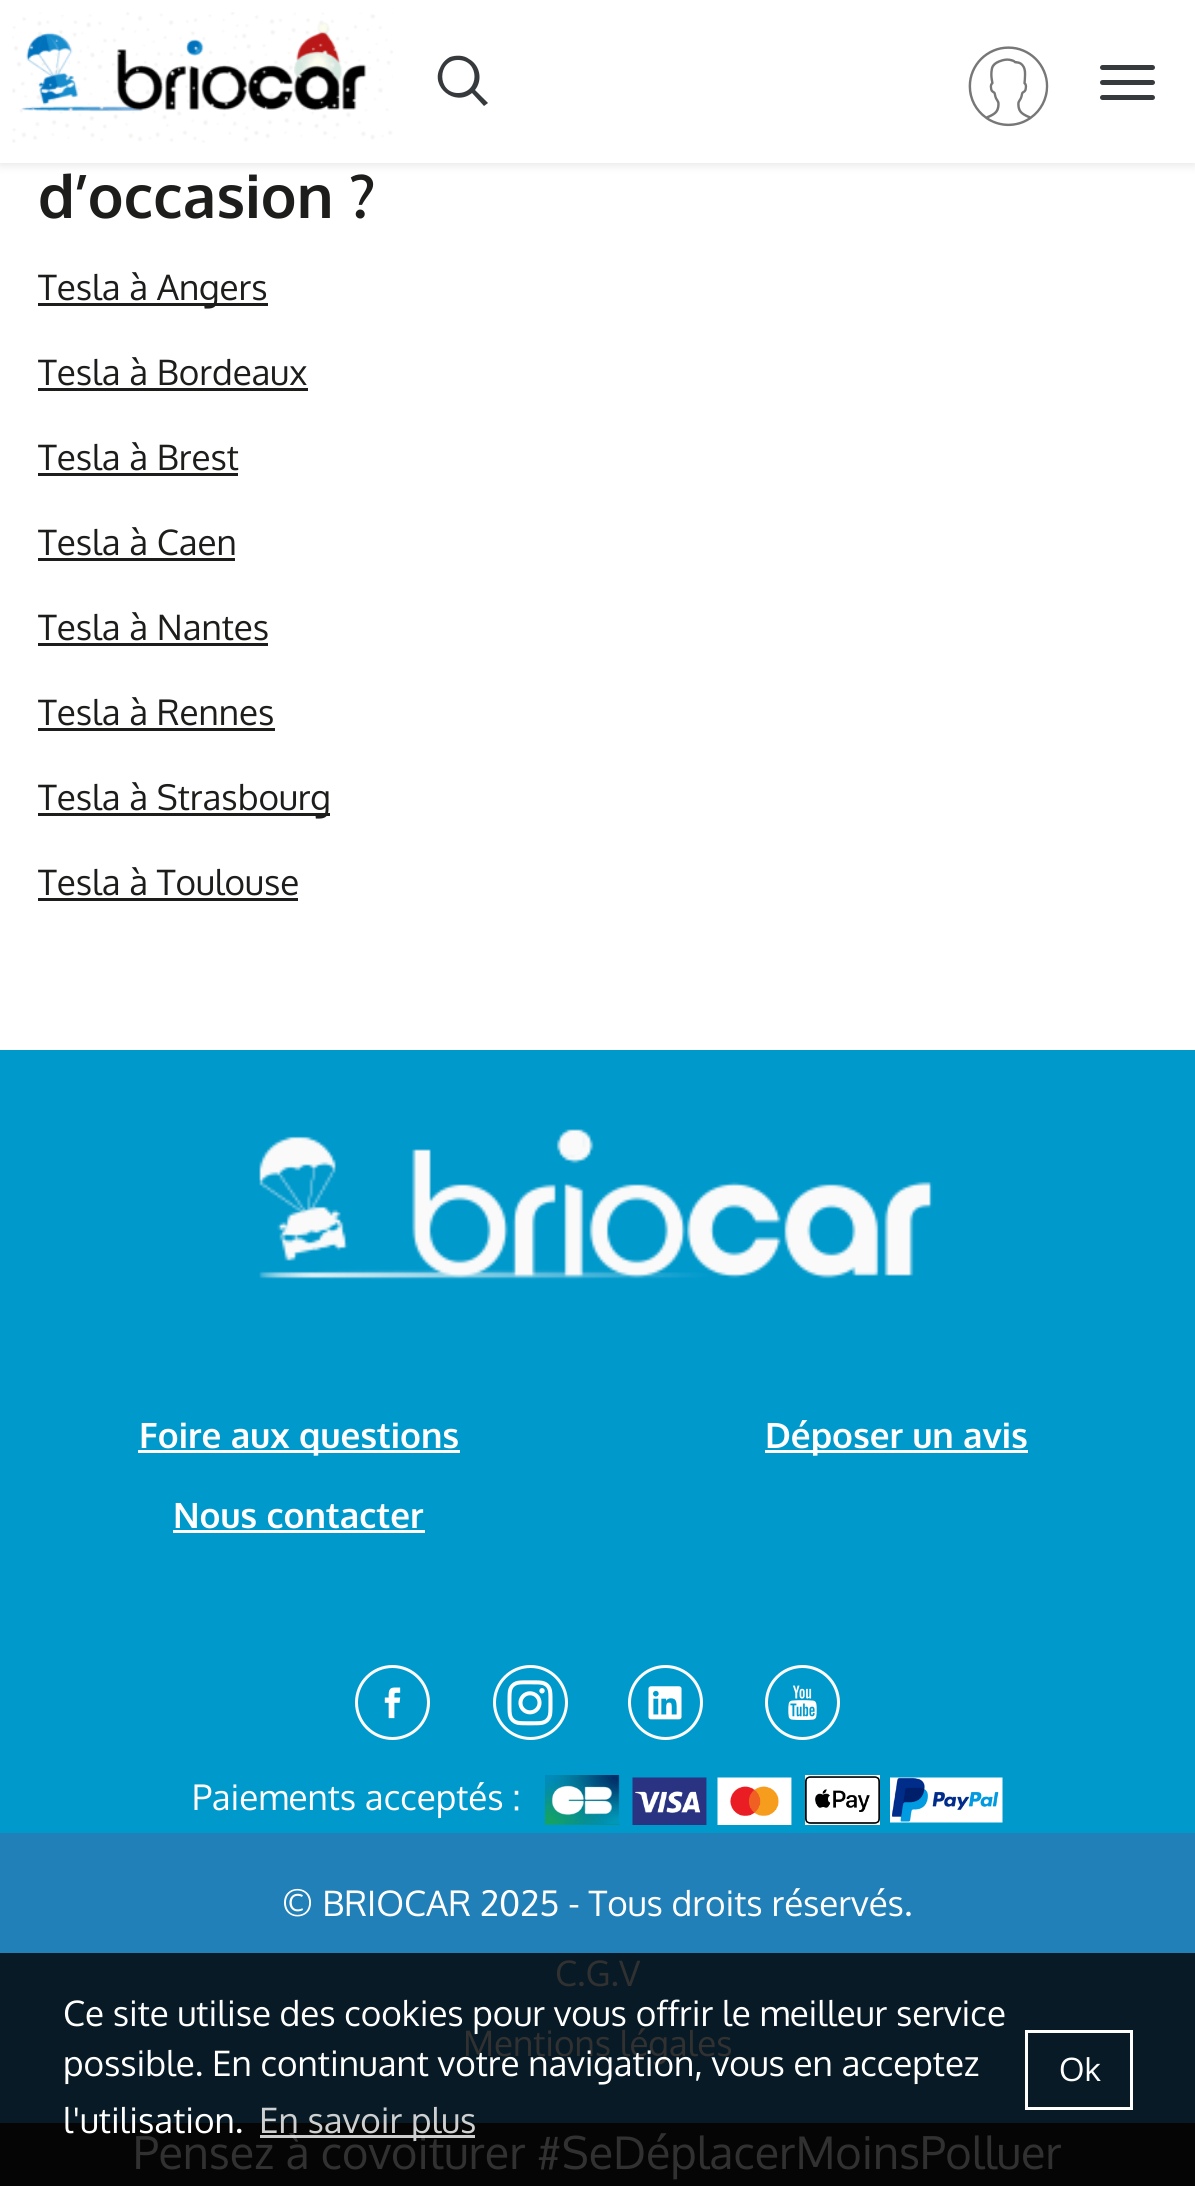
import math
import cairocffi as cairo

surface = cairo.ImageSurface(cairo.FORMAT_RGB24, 1195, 2186)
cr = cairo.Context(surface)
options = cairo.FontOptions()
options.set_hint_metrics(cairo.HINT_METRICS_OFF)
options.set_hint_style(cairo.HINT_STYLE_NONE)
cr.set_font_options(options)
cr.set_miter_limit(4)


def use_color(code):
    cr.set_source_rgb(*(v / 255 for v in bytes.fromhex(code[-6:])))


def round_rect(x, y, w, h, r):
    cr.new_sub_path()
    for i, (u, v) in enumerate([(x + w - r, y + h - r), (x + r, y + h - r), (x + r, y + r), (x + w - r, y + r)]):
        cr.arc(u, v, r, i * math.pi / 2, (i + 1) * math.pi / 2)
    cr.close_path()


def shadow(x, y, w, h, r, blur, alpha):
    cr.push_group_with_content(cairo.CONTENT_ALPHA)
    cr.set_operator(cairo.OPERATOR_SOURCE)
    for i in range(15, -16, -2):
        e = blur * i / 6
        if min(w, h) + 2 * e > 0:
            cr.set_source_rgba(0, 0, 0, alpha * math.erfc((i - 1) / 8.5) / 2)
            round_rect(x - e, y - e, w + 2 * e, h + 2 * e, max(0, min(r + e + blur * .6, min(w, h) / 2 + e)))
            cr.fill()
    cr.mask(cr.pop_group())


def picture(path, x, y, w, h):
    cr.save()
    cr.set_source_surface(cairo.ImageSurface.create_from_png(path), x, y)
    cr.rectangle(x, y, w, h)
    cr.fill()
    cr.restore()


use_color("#050505")
cr.paint()
use_color("#ffffff")
cr.rectangle(0, 163, 1195, 887)
cr.fill()
use_color("#000000")
shadow(0, 3, 1195, 162, 0, 5, 0.1)
use_color("#ffffff")
cr.rectangle(0, 0, 1195, 163)
cr.fill()
picture("img1.png", 12, 12, 381, 131)
use_color("#373a3c")
cr.new_path()
cr.move_to(475, 90)
cr.curve_to(483, 80, 480, 65, 469, 59)
cr.curve_to(464, 55, 456, 55, 450, 57)
cr.curve_to(446, 59, 442, 63, 440, 68)
cr.curve_to(430, 87, 455, 107, 472, 93)
cr.line_to(484, 106)
cr.line_to(488, 103)
cr.close_path()
cr.move_to(458, 60)
cr.curve_to(480, 60, 480, 93, 458, 93)
cr.curve_to(437, 93, 437, 60, 458, 60)
cr.close_path()
cr.fill()
picture("img2.png", 968, 46, 81, 81)
round_rect(1100, 65, 55, 5, 2.5)
cr.fill()
round_rect(1100, 80, 55, 5, 2.5)
cr.fill()
round_rect(1100, 95, 55, 5, 2.5)
cr.fill()
cr.select_font_face("Oxygen", cairo.FONT_SLANT_NORMAL, cairo.FONT_WEIGHT_BOLD)
cr.set_font_size(60)
use_color("#1d1d1b")
cr.move_to(38, 218)
cr.show_text("d’occasion ?")
cr.rectangle(38, 303, 230, 3)
cr.fill()
cr.select_font_face("Oxygen")
cr.set_font_size(35)
cr.move_to(38, 300)
cr.show_text("Tesla à Angers")
cr.move_to(38, 385)
cr.show_text("Tesla à Bordeaux")
cr.rectangle(38, 388, 270, 3)
cr.fill()
cr.move_to(38, 470)
cr.show_text("Tesla à Brest")
cr.rectangle(38, 473, 200, 3)
cr.fill()
cr.move_to(38, 555)
cr.show_text("Tesla à Caen")
cr.rectangle(38, 558, 197, 3)
cr.fill()
cr.move_to(38, 640)
cr.show_text("Tesla à Nantes")
cr.rectangle(38, 643, 230, 3)
cr.fill()
cr.move_to(38, 725)
cr.show_text("Tesla à Rennes")
cr.rectangle(38, 728, 237, 3)
cr.fill()
cr.rectangle(38, 813, 292, 3)
cr.fill()
cr.move_to(38, 810)
cr.show_text("Tesla à Strasbourg")
cr.move_to(38, 895)
cr.show_text("Tesla à Toulouse")
cr.rectangle(38, 898, 260, 3)
cr.fill()
use_color("#0099cc")
cr.rectangle(0, 1050, 1195, 783)
cr.fill()
picture("img3.png", 259, 1129, 674, 151)
use_color("#ffffff")
cr.rectangle(138, 1450, 322, 3)
cr.fill()
cr.select_font_face("Oxygen", cairo.FONT_SLANT_NORMAL, cairo.FONT_WEIGHT_BOLD)
cr.move_to(139, 1448)
cr.show_text("Foire aux questions")
cr.move_to(173, 1528)
cr.show_text("Nous contacter")
cr.rectangle(173, 1530, 252, 3)
cr.fill()
cr.rectangle(765, 1450, 263, 3)
cr.fill()
cr.move_to(765, 1448)
cr.show_text("Déposer un avis")
cr.new_path()
cr.arc(392.5, 1702.5, 36, 0, 2 * math.pi)
cr.set_line_width(3)
cr.stroke()
picture("img4.png", 384, 1687, 17, 32)
cr.arc(530.5, 1702.5, 36, 0, 2 * math.pi)
cr.stroke()
picture("img5.png", 507, 1680, 46, 46)
cr.arc(665.5, 1702.5, 36, 0, 2 * math.pi)
cr.stroke()
picture("img6.png", 648, 1686, 34, 34)
cr.arc(802.5, 1702.5, 36, 0, 2 * math.pi)
cr.stroke()
picture("img7.png", 788, 1685, 29, 35)
cr.select_font_face("Oxygen")
cr.move_to(192, 1810)
cr.show_text("Paiements acceptés :")
picture("img8.png", 545, 1775, 75, 50)
cr.rectangle(805, 1775, 75, 50)
cr.fill()
picture("img9.png", 632, 1777, 75, 48)
picture("img10.png", 717, 1777, 75, 48)
picture("img11.png", 805, 1776, 75, 48)
picture("img12.png", 890, 1777, 113, 46)
use_color("#2180b8")
cr.rectangle(0, 1833, 1195, 120)
cr.fill()
use_color("#071a25")
cr.rectangle(0, 1953, 1195, 170)
cr.fill()
use_color("#ffffff")
cr.move_to(282, 1916)
cr.show_text("© BRIOCAR 2025 - Tous droits réservés.")
use_color("#313131")
cr.move_to(555, 1986)
cr.show_text("C.G.V")
cr.move_to(463, 2056)
cr.show_text("Mentions légales")
use_color("#ffffff")
cr.move_to(63, 2026)
cr.show_text("Ce site utilise des cookies pour vous offrir le meilleur service")
cr.move_to(63, 2076)
cr.show_text("possible. En continuant votre navigation, vous en acceptez")
cr.move_to(63, 2133)
cr.show_text("l'utilisation.")
cr.set_font_size(45)
use_color("#313131")
cr.move_to(133, 2169)
cr.show_text("Pensez à covoiturer #SeDéplacerMoinsPolluer")
cr.set_source_rgba(1, 1, 1, 0.8)
cr.rectangle(260, 2135, 215, 3)
cr.fill()
cr.set_font_size(35)
use_color("#cdcfd0")
cr.move_to(259, 2133)
cr.show_text("En savoir plus")
cr.rectangle(1026.5, 2031.5, 105, 77)
use_color("#ffffff")
cr.stroke()
cr.set_font_size(32)
cr.move_to(1059, 2081)
cr.show_text("Ok")
surface.write_to_png("result.png")
